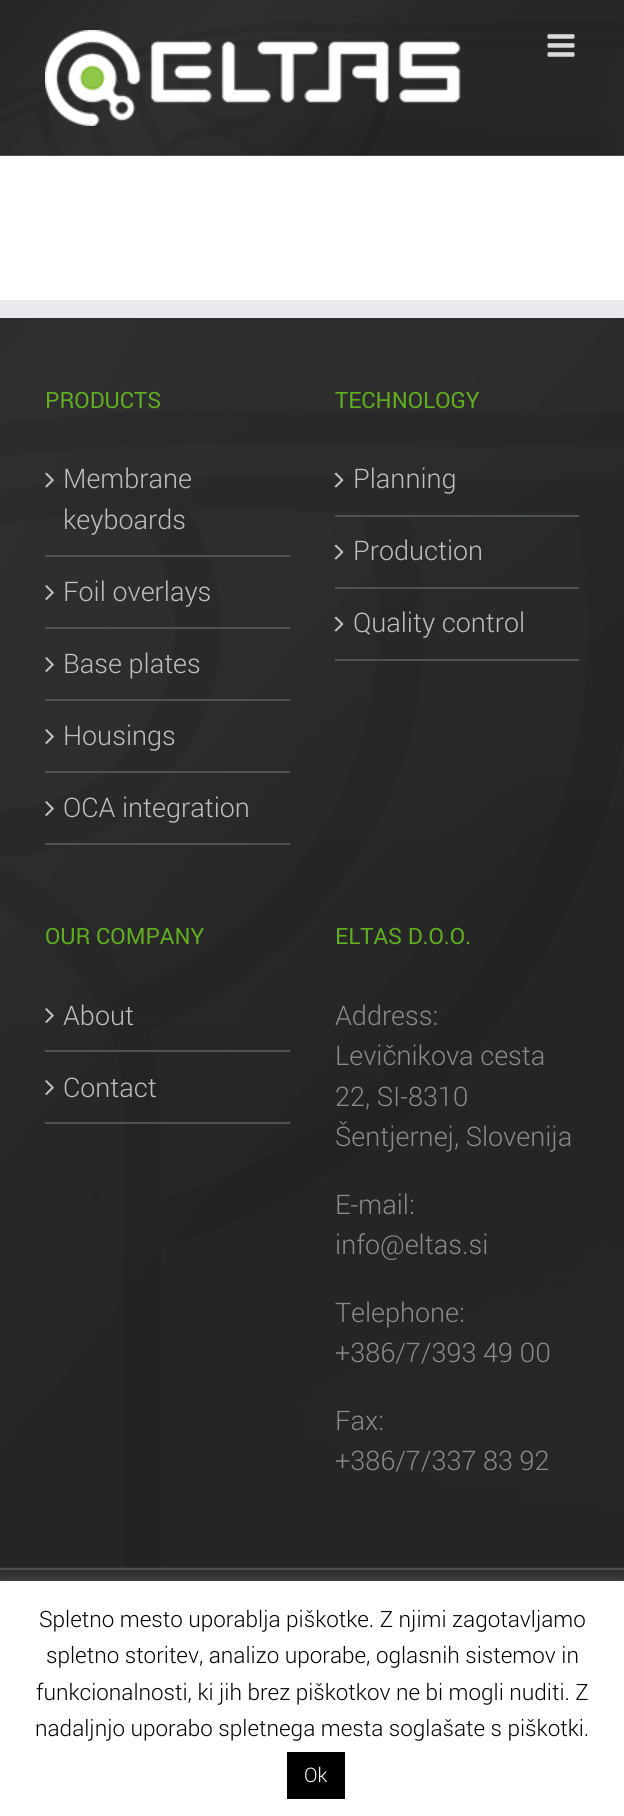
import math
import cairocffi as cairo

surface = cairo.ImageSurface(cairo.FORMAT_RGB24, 624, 1816)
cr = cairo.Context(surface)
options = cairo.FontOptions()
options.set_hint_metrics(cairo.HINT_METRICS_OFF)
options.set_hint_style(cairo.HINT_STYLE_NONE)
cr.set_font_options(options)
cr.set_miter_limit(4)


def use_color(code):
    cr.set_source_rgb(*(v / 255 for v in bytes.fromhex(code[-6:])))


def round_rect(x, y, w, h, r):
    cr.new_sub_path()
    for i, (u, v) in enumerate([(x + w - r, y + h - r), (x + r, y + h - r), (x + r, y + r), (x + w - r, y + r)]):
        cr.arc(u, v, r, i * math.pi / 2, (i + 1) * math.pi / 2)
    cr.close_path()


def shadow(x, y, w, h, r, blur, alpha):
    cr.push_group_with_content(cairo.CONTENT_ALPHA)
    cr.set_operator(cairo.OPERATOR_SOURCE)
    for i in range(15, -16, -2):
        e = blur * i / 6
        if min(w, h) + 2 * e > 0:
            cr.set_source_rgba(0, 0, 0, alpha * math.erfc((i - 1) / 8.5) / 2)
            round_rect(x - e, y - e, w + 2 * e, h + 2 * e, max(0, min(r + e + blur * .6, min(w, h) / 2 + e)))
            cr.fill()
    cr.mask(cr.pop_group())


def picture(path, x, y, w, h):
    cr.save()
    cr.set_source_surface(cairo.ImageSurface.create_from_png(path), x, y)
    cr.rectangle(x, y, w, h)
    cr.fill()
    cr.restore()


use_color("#ffffff")
cr.paint()
picture("img1.png", 0, 0, 624, 156)
picture("img2.png", 45, 30, 416, 96)
picture("img3.png", 547, 34, 28, 23)
use_color("#363839")
cr.rectangle(0, 1567, 624, 1)
cr.fill()
picture("img4.png", 0, 318, 624, 1250)
use_color("#e9eaee")
cr.rectangle(0, 300, 624, 18)
cr.fill()
cr.select_font_face("Roboto")
cr.set_font_size(22.5)
use_color("#60ad22")
cr.move_to(45, 408)
cr.show_text("PRODUCTS")
use_color("#505152")
cr.rectangle(45, 555, 245, 2)
cr.fill()
picture("img5.png", 45, 472, 9, 16)
cr.select_font_face("Roboto Light")
cr.set_font_size(27)
use_color("#bfbfbf")
cr.move_to(63, 488)
cr.show_text("Membrane")
cr.move_to(63, 529)
cr.show_text("keyboards")
use_color("#505152")
cr.rectangle(45, 627, 245, 2)
cr.fill()
picture("img6.png", 45, 585, 9, 15)
use_color("#bfbfbf")
cr.move_to(63, 601)
cr.show_text("Foil overlays")
use_color("#505152")
cr.rectangle(45, 699, 245, 2)
cr.fill()
picture("img7.png", 45, 657, 9, 15)
use_color("#bfbfbf")
cr.move_to(63, 673)
cr.show_text("Base plates")
use_color("#505152")
cr.rectangle(45, 771, 245, 2)
cr.fill()
picture("img8.png", 45, 729, 9, 15)
use_color("#bfbfbf")
cr.move_to(63, 745)
cr.show_text("Housings")
use_color("#505152")
cr.rectangle(45, 843, 245, 2)
cr.fill()
picture("img9.png", 45, 801, 9, 15)
use_color("#bfbfbf")
cr.move_to(63, 817)
cr.show_text("OCA integration")
cr.select_font_face("Roboto")
cr.set_font_size(22.5)
use_color("#60ad22")
cr.move_to(335, 408)
cr.show_text("TECHNOLOGY")
use_color("#505152")
cr.rectangle(335, 515, 244, 2)
cr.fill()
picture("img10.png", 334, 472, 10, 16)
cr.select_font_face("Roboto Light")
cr.set_font_size(27)
use_color("#bfbfbf")
cr.move_to(353, 488)
cr.show_text("Planning")
use_color("#505152")
cr.rectangle(335, 587, 244, 2)
cr.fill()
picture("img11.png", 334, 544, 10, 16)
use_color("#bfbfbf")
cr.move_to(353, 560)
cr.show_text("Production")
use_color("#505152")
cr.rectangle(335, 659, 244, 2)
cr.fill()
picture("img12.png", 334, 616, 10, 16)
use_color("#bfbfbf")
cr.move_to(353, 632)
cr.show_text("Quality control")
cr.select_font_face("Roboto")
cr.set_font_size(22.5)
use_color("#60ad22")
cr.move_to(45, 944)
cr.show_text("OUR COMPANY")
use_color("#505152")
cr.rectangle(45, 1050, 245, 2)
cr.fill()
picture("img13.png", 45, 1008, 9, 15)
cr.select_font_face("Roboto Light")
cr.set_font_size(27)
use_color("#bfbfbf")
cr.move_to(63, 1025)
cr.show_text("About")
use_color("#505152")
cr.rectangle(45, 1122, 245, 2)
cr.fill()
picture("img14.png", 45, 1080, 9, 15)
use_color("#bfbfbf")
cr.move_to(63, 1097)
cr.show_text("Contact")
cr.select_font_face("Roboto")
cr.set_font_size(22.5)
use_color("#60ad22")
cr.move_to(335, 944)
cr.show_text("ELTAS D.O.O.")
cr.select_font_face("Roboto Light")
cr.set_font_size(27)
use_color("#8c8989")
cr.move_to(335, 1025)
cr.show_text("Address:")
cr.move_to(335, 1065)
cr.show_text("Levičnikova cesta")
cr.move_to(335, 1106)
cr.show_text("22, SI-8310")
cr.move_to(335, 1146)
cr.show_text("Šentjernej, Slovenija")
cr.move_to(335, 1214)
cr.show_text("E-mail:")
cr.move_to(335, 1254)
cr.show_text("info@eltas.si")
cr.move_to(335, 1322)
cr.show_text("Telephone:")
cr.move_to(335, 1362)
cr.show_text("+386/7/393 49 00")
cr.move_to(335, 1430)
cr.show_text("Fax:")
cr.move_to(335, 1470)
cr.show_text("+386/7/337 83 92")
use_color("#282a2b")
cr.rectangle(0, 1570, 624, 11)
cr.fill()
use_color("#4b4c4d")
cr.rectangle(0, 1568, 624, 2)
cr.fill()
use_color("#acabab")
shadow(0, 1580, 624, 235, 0, 7.5, 0.3)
use_color("#ffffff")
cr.rectangle(0, 1581, 624, 235)
cr.fill()
cr.set_font_size(22.5)
use_color("#000000")
cr.move_to(39, 1627)
cr.show_text("Spletno mesto uporablja piškotke. Z njimi zagotavljamo")
cr.move_to(46, 1663)
cr.show_text("spletno storitev, analizo uporabe, oglasnih sistemov in")
cr.move_to(36, 1700)
cr.show_text("funkcionalnosti, ki jih brez piškotkov ne bi mogli nuditi. Z")
cr.move_to(35, 1736)
cr.show_text("nadaljnjo uporabo spletnega mesta soglašate s piškotki.")
cr.rectangle(287, 1752, 58, 47)
cr.fill()
cr.set_font_size(20)
use_color("#ffffff")
cr.move_to(304, 1782)
cr.show_text("Ok")
surface.write_to_png("result.png")
